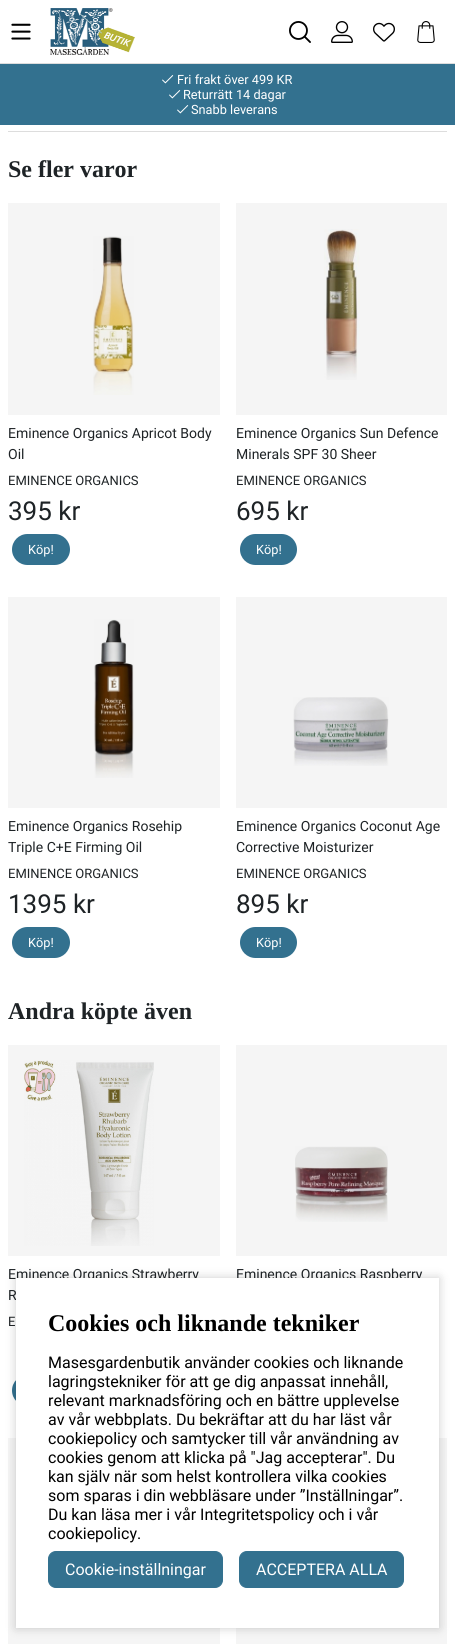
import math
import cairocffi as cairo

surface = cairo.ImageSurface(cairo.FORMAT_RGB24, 455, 1644)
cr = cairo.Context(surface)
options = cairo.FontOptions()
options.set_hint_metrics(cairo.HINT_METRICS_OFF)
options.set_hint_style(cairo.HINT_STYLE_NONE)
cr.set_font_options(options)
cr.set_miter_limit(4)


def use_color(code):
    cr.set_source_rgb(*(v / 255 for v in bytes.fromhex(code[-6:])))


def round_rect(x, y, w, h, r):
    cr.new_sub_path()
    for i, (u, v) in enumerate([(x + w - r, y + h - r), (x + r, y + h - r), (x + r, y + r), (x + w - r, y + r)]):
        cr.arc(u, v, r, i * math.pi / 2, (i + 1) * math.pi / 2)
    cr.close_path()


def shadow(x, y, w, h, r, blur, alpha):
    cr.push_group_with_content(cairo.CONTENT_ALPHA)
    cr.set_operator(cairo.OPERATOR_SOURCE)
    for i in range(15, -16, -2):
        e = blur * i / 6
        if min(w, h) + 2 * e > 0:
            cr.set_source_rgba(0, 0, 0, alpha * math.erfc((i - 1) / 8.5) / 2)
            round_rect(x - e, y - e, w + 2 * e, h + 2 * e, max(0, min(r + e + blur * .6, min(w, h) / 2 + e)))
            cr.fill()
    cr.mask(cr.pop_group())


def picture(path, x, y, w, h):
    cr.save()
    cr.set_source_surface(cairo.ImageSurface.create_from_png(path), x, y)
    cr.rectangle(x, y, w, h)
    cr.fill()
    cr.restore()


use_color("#ffffff")
cr.paint()
use_color("#f5f5f5")
cr.rectangle(236, 1438, 211, 206)
cr.fill()
cr.rectangle(8, 1438, 212, 206)
cr.fill()
cr.rectangle(236, 1045, 211, 211)
cr.fill()
cr.rectangle(8, 1045, 212, 211)
cr.fill()
cr.rectangle(236, 597, 211, 211)
cr.fill()
cr.rectangle(8, 597, 212, 211)
cr.fill()
cr.rectangle(236, 203, 211, 212)
cr.fill()
cr.rectangle(8, 203, 212, 212)
cr.fill()
use_color("#dddddd")
cr.rectangle(0, 63, 455, 1)
cr.fill()
picture("img1.png", 11, 23, 20, 17)
picture("img2.png", 50, 8, 85, 47)
picture("img3.png", 289, 21, 22, 22)
picture("img4.png", 331, 21, 22, 22)
picture("img5.png", 373, 22, 22, 20)
picture("img6.png", 417, 21, 18, 22)
use_color("#33718f")
cr.rectangle(0, 64, 455, 61)
cr.fill()
picture("img7.png", 162, 75, 12, 9)
cr.select_font_face("Roboto")
cr.set_font_size(12.75)
use_color("#ffffff")
cr.move_to(177, 84)
cr.show_text("Fri frakt över 499 KR")
picture("img7.png", 169, 90, 12, 9)
cr.move_to(183, 99)
cr.show_text("Returrätt 14 dagar")
picture("img7.png", 177, 105, 12, 9)
cr.move_to(191, 114)
cr.show_text("Snabb leverans")
use_color("#dddddd")
cr.rectangle(8, 131, 439, 1)
cr.fill()
cr.select_font_face("Liberation Serif", cairo.FONT_SLANT_NORMAL, cairo.FONT_WEIGHT_BOLD)
cr.set_font_size(24)
use_color("#1e2326")
cr.move_to(8, 177)
cr.show_text("Se fler varor")
picture("img8.png", 93, 236, 41, 159)
cr.select_font_face("Roboto")
cr.set_font_size(14)
cr.move_to(8, 438)
cr.show_text("Eminence Organics Apricot Body")
cr.move_to(8, 459)
cr.show_text("Oil")
cr.set_font_size(13)
cr.move_to(8, 485)
cr.show_text("EMINENCE ORGANICS")
cr.set_font_size(26)
cr.move_to(8, 520)
cr.show_text("395 kr")
use_color("#33718f")
round_rect(12, 534, 58, 31, 15.5)
cr.fill()
cr.set_font_size(12.75)
use_color("#ffffff")
cr.move_to(28, 554)
cr.show_text("Köp!")
picture("img9.png", 324, 229, 36, 151)
cr.set_font_size(14)
use_color("#1e2326")
cr.move_to(236, 438)
cr.show_text("Eminence Organics Sun Defence")
cr.move_to(236, 459)
cr.show_text("Minerals SPF 30 Sheer")
cr.set_font_size(13)
cr.move_to(236, 485)
cr.show_text("EMINENCE ORGANICS")
cr.set_font_size(26)
cr.move_to(236, 520)
cr.show_text("695 kr")
use_color("#33718f")
round_rect(240, 534, 57, 31, 15.5)
cr.fill()
cr.set_font_size(12.75)
use_color("#ffffff")
cr.move_to(256, 554)
cr.show_text("Köp!")
picture("img10.png", 94, 619, 40, 159)
cr.set_font_size(14)
use_color("#1e2326")
cr.move_to(8, 831)
cr.show_text("Eminence Organics Rosehip")
cr.move_to(8, 852)
cr.show_text("Triple C+E Firming Oil")
cr.set_font_size(13)
cr.move_to(8, 878)
cr.show_text("EMINENCE ORGANICS")
cr.set_font_size(26)
cr.move_to(8, 913)
cr.show_text("1395 kr")
use_color("#33718f")
round_rect(12, 927, 58, 31, 15.5)
cr.fill()
cr.set_font_size(12.75)
use_color("#ffffff")
cr.move_to(28, 947)
cr.show_text("Köp!")
picture("img11.png", 293, 697, 96, 69)
cr.set_font_size(14)
use_color("#1e2326")
cr.move_to(236, 831)
cr.show_text("Eminence Organics Coconut Age")
cr.move_to(236, 852)
cr.show_text("Corrective Moisturizer")
cr.set_font_size(13)
cr.move_to(236, 878)
cr.show_text("EMINENCE ORGANICS")
cr.set_font_size(26)
cr.move_to(236, 913)
cr.show_text("895 kr")
use_color("#33718f")
round_rect(240, 927, 57, 31, 15.5)
cr.fill()
cr.set_font_size(12.75)
use_color("#ffffff")
cr.move_to(256, 947)
cr.show_text("Köp!")
cr.select_font_face("Liberation Serif", cairo.FONT_SLANT_NORMAL, cairo.FONT_WEIGHT_BOLD)
cr.set_font_size(24)
use_color("#1e2326")
cr.move_to(8, 1019)
cr.show_text("Andra köpte även")
picture("img12.png", 24, 1060, 130, 186)
cr.select_font_face("Roboto")
cr.set_font_size(14)
cr.move_to(8, 1279)
cr.show_text("Eminence Organics Strawberry")
cr.move_to(8, 1300)
cr.show_text("R")
cr.set_font_size(13)
cr.move_to(8, 1326)
cr.show_text("E")
use_color("#33718f")
round_rect(12, 1375, 58, 31, 15.5)
cr.fill()
picture("img13.png", 295, 1146, 93, 76)
cr.set_font_size(14)
use_color("#1e2326")
cr.move_to(236, 1279)
cr.show_text("Eminence Organics Raspberry")
use_color("#000000")
shadow(16, 1278, 423, 350, 0, 5, 0.2)
use_color("#ffffff")
cr.rectangle(16, 1278, 423, 350)
cr.fill()
cr.select_font_face("Liberation Serif", cairo.FONT_SLANT_NORMAL, cairo.FONT_WEIGHT_BOLD)
cr.set_font_size(24)
use_color("#000000")
cr.move_to(48, 1331)
cr.show_text("Cookies och liknande tekniker")
cr.select_font_face("Roboto")
cr.set_font_size(16)
cr.move_to(48, 1368)
cr.show_text("Masesgardenbutik använder cookies och liknande")
cr.move_to(48, 1387)
cr.show_text("lagringstekniker för att ge dig anpassat innehåll,")
cr.move_to(48, 1406)
cr.show_text("relevant marknadsföring och en bättre upplevelse")
cr.move_to(48, 1425)
cr.show_text("av vår webbplats. Du bekräftar att du har läst vår")
cr.move_to(48, 1444)
cr.show_text("cookiepolicy och samtycker till vår användning av")
cr.move_to(48, 1463)
cr.show_text("cookies genom att klicka på \"Jag accepterar\". Du")
cr.move_to(48, 1482)
cr.show_text("kan själv när som helst kontrollera vilka cookies")
cr.move_to(48, 1501)
cr.show_text("som sparas i din webbläsare under ”Inställningar”.")
cr.move_to(48, 1520)
cr.show_text("Du kan läsa mer i vår Integritetspolicy och i vår")
cr.move_to(48, 1539)
cr.show_text("cookiepolicy.")
use_color("#33718f")
round_rect(48.5, 1551.5, 174, 36, 7.5)
cr.fill_preserve()
cr.set_line_width(1)
cr.stroke()
use_color("#ffffff")
cr.move_to(65, 1575)
cr.show_text("Cookie-inställningar")
use_color("#33718f")
round_rect(239.5, 1551.5, 164, 36, 7.5)
cr.fill_preserve()
cr.stroke()
use_color("#ffffff")
cr.move_to(256, 1575)
cr.show_text("ACCEPTERA ALLA")
surface.write_to_png("result.png")
